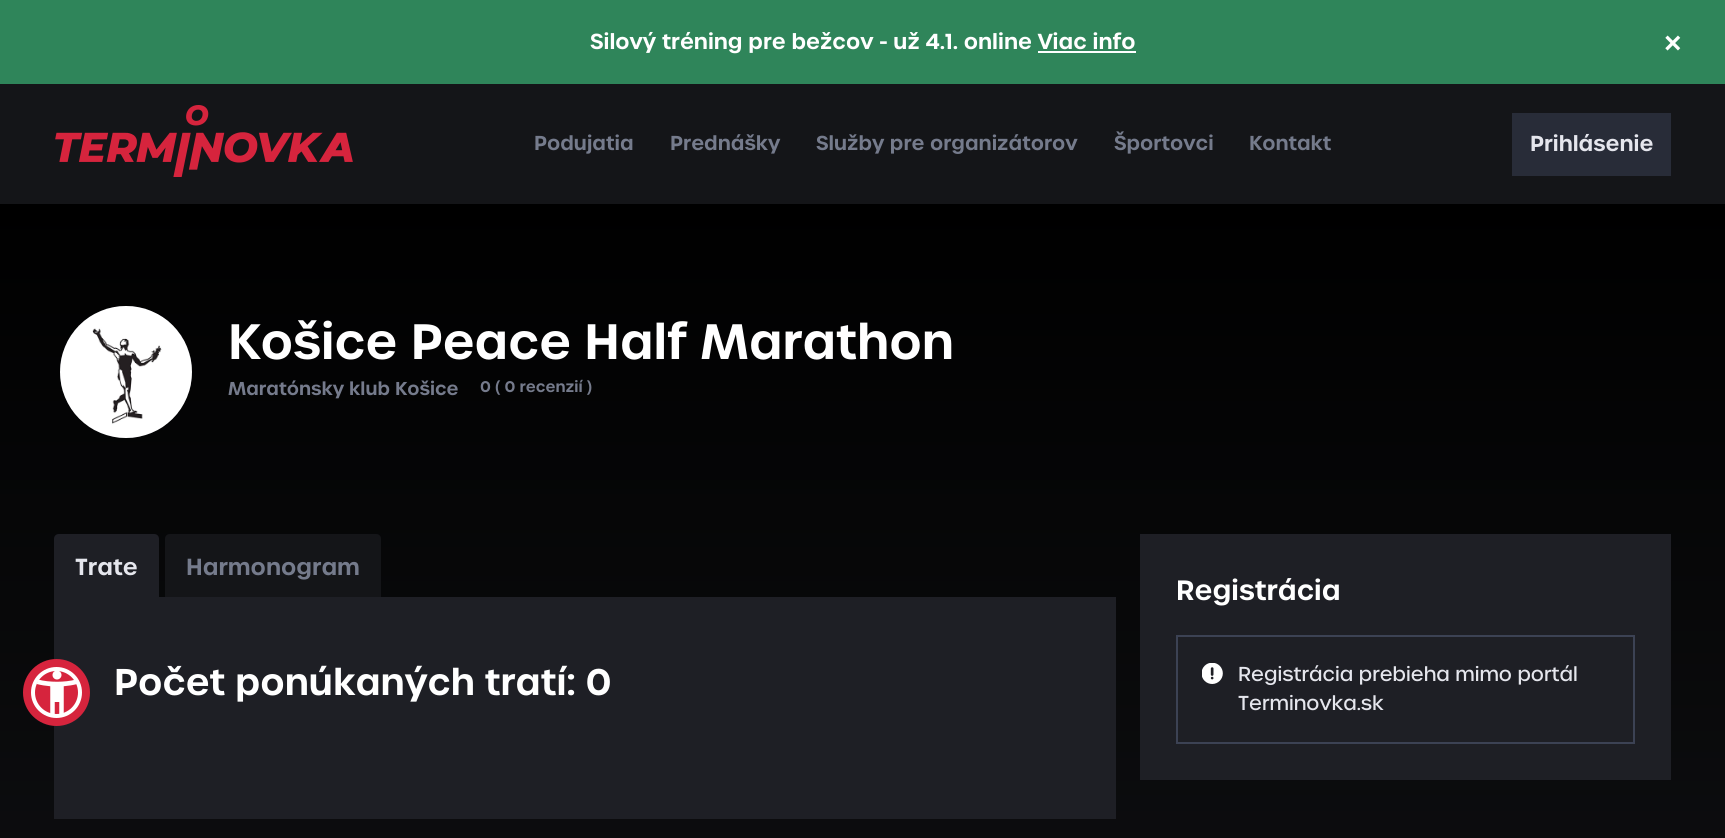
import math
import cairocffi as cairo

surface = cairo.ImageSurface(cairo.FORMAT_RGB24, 1725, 838)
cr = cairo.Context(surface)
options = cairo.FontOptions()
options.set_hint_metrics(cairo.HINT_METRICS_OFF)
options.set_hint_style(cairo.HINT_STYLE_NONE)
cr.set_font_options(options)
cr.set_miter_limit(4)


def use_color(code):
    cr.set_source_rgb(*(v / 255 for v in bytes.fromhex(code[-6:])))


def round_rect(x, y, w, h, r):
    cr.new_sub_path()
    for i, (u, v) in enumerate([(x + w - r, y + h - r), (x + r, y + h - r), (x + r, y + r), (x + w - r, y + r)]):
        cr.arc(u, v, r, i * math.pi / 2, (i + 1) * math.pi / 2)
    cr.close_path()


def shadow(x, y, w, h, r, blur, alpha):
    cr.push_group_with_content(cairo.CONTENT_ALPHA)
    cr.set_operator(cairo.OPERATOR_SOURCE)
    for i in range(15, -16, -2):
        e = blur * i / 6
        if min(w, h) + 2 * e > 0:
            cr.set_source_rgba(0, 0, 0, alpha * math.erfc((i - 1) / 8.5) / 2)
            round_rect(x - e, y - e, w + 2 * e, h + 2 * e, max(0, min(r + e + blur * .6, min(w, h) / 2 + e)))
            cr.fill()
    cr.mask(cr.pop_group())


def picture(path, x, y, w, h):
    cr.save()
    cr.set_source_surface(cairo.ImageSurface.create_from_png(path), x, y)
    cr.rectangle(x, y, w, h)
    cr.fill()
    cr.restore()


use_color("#141518")
cr.paint()
use_color("#2f855a")
cr.rectangle(0, 0, 1725, 84)
cr.fill()
cr.select_font_face("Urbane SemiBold")
cr.set_font_size(21)
use_color("#ffffff")
cr.move_to(590, 49)
cr.show_text("Silový tréning pre bežcov - už 4.1. online Viac info")
cr.rectangle(1038, 51, 98, 2)
cr.fill()
cr.select_font_face("Liberation Sans", cairo.FONT_SLANT_NORMAL, cairo.FONT_WEIGHT_BOLD)
cr.set_font_size(30)
cr.move_to(1664, 53)
cr.show_text("×")
picture("img1.png", 55, 105, 298, 72)
cr.select_font_face("Urbane SemiBold")
cr.set_font_size(19.5)
use_color("#757b8c")
cr.move_to(534, 150)
cr.show_text("Podujatia")
cr.move_to(670, 150)
cr.show_text("Prednášky")
cr.move_to(816, 150)
cr.show_text("Služby pre organizátorov")
cr.move_to(1114, 150)
cr.show_text("Športovci")
cr.move_to(1249, 150)
cr.show_text("Kontakt")
use_color("#282c38")
cr.rectangle(1512, 113, 159, 63)
cr.fill()
cr.set_font_size(21)
use_color("#e5e6ed")
cr.move_to(1530, 151)
cr.show_text("Prihlásenie")
gradient = cairo.LinearGradient(863, 204, 863, 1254)
gradient.add_color_stop_rgba(0, 0, 0, 0, 1)
gradient.add_color_stop_rgba(1, 0.078, 0.082, 0.094, 1)
cr.set_source(gradient)
cr.rectangle(0, 204, 1725, 634)
cr.fill()
use_color("#1e1f25")
cr.rectangle(54, 597, 1062, 222)
cr.fill()
use_color("#5d6494")
shadow(30, 669, 53, 53, 26.5, 3, 0.2)
use_color("#d6243d")
cr.arc(56.5, 692.5, 24, 0, 2 * math.pi)
cr.fill_preserve()
use_color("#ffffff")
cr.set_line_width(5)
cr.stroke()
cr.arc(56.5, 692.5, 29.5, 0, 2 * math.pi)
use_color("#d6243d")
cr.set_line_width(8)
cr.stroke()
picture("img2.png", 37, 671, 40, 43)
use_color("#1e1f25")
cr.arc(126, 372, 66, 0, 2 * math.pi)
cr.fill()
picture("img3.png", 60, 306, 132, 132)
cr.set_font_size(48)
use_color("#ffffff")
cr.move_to(228, 359)
cr.show_text("Košice Peace Half Marathon")
cr.set_font_size(18)
use_color("#757b8c")
cr.move_to(228, 395)
cr.show_text("Maratónsky klub Košice")
cr.set_font_size(15)
cr.move_to(480, 392)
cr.show_text("0 ( 0 recenzií )")
use_color("#1e1f25")
cr.new_path()
cr.move_to(59, 534)
cr.line_to(154, 534)
cr.curve_to(157, 534, 159, 536, 159, 539)
cr.line_to(159, 597)
cr.line_to(54, 597)
cr.line_to(54, 539)
cr.curve_to(54, 536, 56, 534, 59, 534)
cr.close_path()
cr.fill()
cr.set_font_size(22.5)
use_color("#e5e6ed")
cr.move_to(75, 575)
cr.show_text("Trate")
use_color("#141518")
cr.new_path()
cr.move_to(170, 534)
cr.line_to(376, 534)
cr.curve_to(379, 534, 381, 536, 381, 539)
cr.line_to(381, 597)
cr.line_to(165, 597)
cr.line_to(165, 539)
cr.curve_to(165, 536, 167, 534, 170, 534)
cr.close_path()
cr.fill()
use_color("#757b8c")
cr.move_to(186, 575)
cr.show_text("Harmonogram")
cr.set_font_size(36)
use_color("#ffffff")
cr.move_to(114, 695)
cr.show_text("Počet ponúkaných tratí: 0")
use_color("#1e1f25")
cr.rectangle(1140, 534, 531, 246)
cr.fill()
cr.set_font_size(27)
use_color("#ffffff")
cr.move_to(1176, 600)
cr.show_text("Registrácia")
cr.rectangle(1177, 636, 457, 107)
use_color("#3c4254")
cr.set_line_width(2)
cr.stroke()
picture("img4.png", 1202, 663, 21, 21)
cr.select_font_face("Urbane Medium")
cr.set_font_size(19.5)
use_color("#e5e6ed")
cr.move_to(1238, 681)
cr.show_text("Registrácia prebieha mimo portál")
cr.move_to(1238, 710)
cr.show_text("Terminovka.sk")
surface.write_to_png("result.png")
